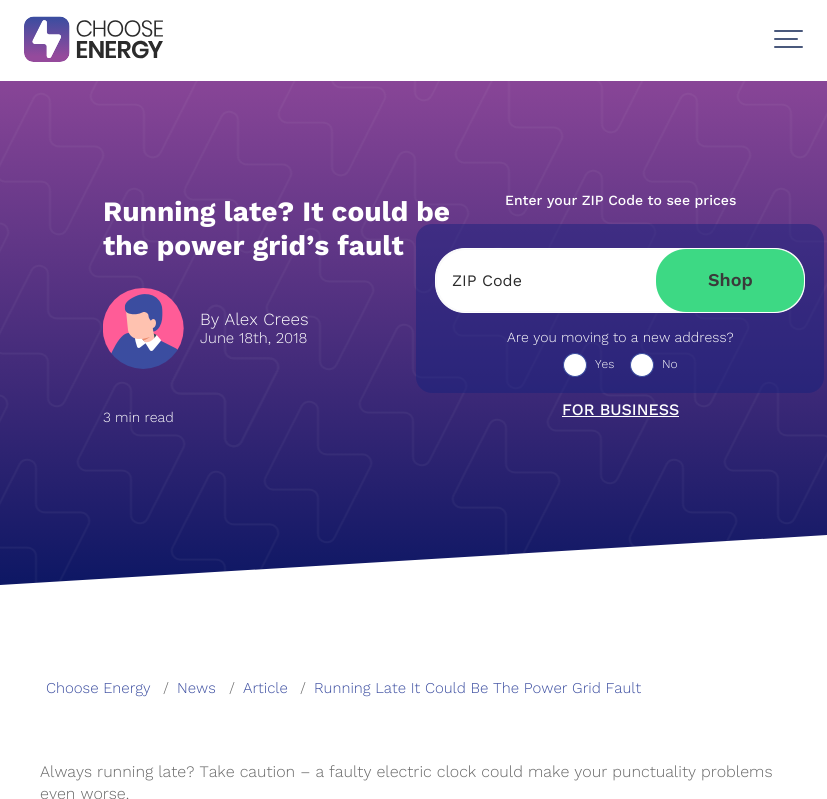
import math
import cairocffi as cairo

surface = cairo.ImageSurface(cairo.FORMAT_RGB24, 827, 799)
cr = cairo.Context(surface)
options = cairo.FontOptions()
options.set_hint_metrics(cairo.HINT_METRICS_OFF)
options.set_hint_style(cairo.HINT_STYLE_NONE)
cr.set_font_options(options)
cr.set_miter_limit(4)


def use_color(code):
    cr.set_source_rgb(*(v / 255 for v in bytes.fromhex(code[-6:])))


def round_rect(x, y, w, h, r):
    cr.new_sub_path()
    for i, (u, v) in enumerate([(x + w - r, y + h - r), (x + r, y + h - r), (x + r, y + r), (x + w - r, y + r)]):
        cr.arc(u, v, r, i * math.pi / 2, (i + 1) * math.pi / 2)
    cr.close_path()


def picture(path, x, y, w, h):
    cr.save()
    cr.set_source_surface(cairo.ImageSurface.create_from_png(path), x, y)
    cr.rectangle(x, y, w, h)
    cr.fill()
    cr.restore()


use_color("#ffffff")
cr.paint()
picture("img1.png", 24, 16, 139, 46)
picture("img2.png", 774, 30, 29, 18)
picture("img3.png", 0, 81, 827, 504)
cr.select_font_face("Work Sans", cairo.FONT_SLANT_NORMAL, cairo.FONT_WEIGHT_BOLD)
cr.set_font_size(28)
use_color("#ffffff")
cr.move_to(103, 221)
cr.show_text("Running late? It could be")
cr.move_to(103, 255)
cr.show_text("the power grid’s fault")
picture("img4.png", 103, 288, 81, 81)
cr.select_font_face("Work Sans Light")
cr.set_font_size(17)
cr.move_to(200, 325)
cr.show_text("By Alex Crees")
cr.set_font_size(15)
cr.move_to(200, 343)
cr.show_text("June 18th, 2018")
cr.set_font_size(14)
cr.move_to(103, 422)
cr.show_text("3 min read")
cr.select_font_face("Work Sans Medium")
cr.move_to(505, 205)
cr.show_text("Enter your ZIP Code to see prices")
cr.set_source_rgba(0.075, 0.129, 0.49, 0.45)
round_rect(416, 224, 408, 169, 16)
cr.fill()
use_color("#ffffff")
round_rect(435.5, 248.5, 369, 64, 29.5)
cr.fill_preserve()
cr.set_line_width(1)
cr.stroke()
cr.new_path()
cr.move_to(466, 249.5)
cr.line_to(690.5, 249.5)
cr.line_to(690.5, 311.5)
cr.line_to(466, 311.5)
cr.curve_to(449.5, 311.5, 436.5, 298.5, 436.5, 282)
cr.line_to(436.5, 279)
cr.curve_to(436.5, 262.5, 449.5, 249.5, 466, 249.5)
cr.close_path()
use_color("#f9f9f9")
cr.stroke()
cr.select_font_face("Work Sans")
cr.set_font_size(16)
use_color("#2b2b2b")
cr.move_to(452, 286)
cr.show_text("ZIP Code")
use_color("#3dd984")
round_rect(656, 249, 148, 63, 30)
cr.fill()
cr.select_font_face("Work Sans SemiBold")
cr.set_font_size(18)
use_color("#3a3a3a")
cr.move_to(708, 286)
cr.show_text("Shop")
cr.select_font_face("Work Sans Light")
cr.set_font_size(14)
use_color("#ffffff")
cr.move_to(507, 342)
cr.show_text("Are you moving to a new address?")
cr.new_path()
cr.arc(575, 365, 11.5, 0, 2 * math.pi)
cr.fill_preserve()
use_color("#3b4da0")
cr.stroke()
cr.set_font_size(12)
use_color("#ffffff")
cr.move_to(595, 368)
cr.show_text("Yes")
cr.new_path()
cr.arc(642, 365, 11.5, 0, 2 * math.pi)
cr.fill_preserve()
use_color("#3b4da0")
cr.stroke()
use_color("#ffffff")
cr.move_to(662, 368)
cr.show_text("No")
cr.select_font_face("Work Sans Medium")
cr.set_font_size(16)
cr.move_to(562, 415)
cr.show_text("FOR BUSINESS")
cr.rectangle(562, 416, 117, 1)
cr.fill()
cr.select_font_face("Work Sans Light")
cr.set_font_size(15)
use_color("#3b4da0")
cr.move_to(46, 693)
cr.show_text("Choose Energy")
use_color("#666666")
cr.move_to(163, 693)
cr.show_text("/")
use_color("#3b4da0")
cr.move_to(177, 693)
cr.show_text("News")
use_color("#666666")
cr.move_to(229, 693)
cr.show_text("/")
use_color("#3b4da0")
cr.move_to(243, 693)
cr.show_text("Article")
use_color("#666666")
cr.move_to(300, 693)
cr.show_text("/")
use_color("#3b4da0")
cr.move_to(314, 693)
cr.show_text("Running Late It Could Be The Power Grid Fault")
cr.set_font_size(16)
use_color("#666666")
cr.move_to(40, 777)
cr.show_text("Always running late? Take caution – a faulty electric clock could make your punctuality problems")
cr.move_to(40, 799)
cr.show_text("even worse.")
surface.write_to_png("result.png")
